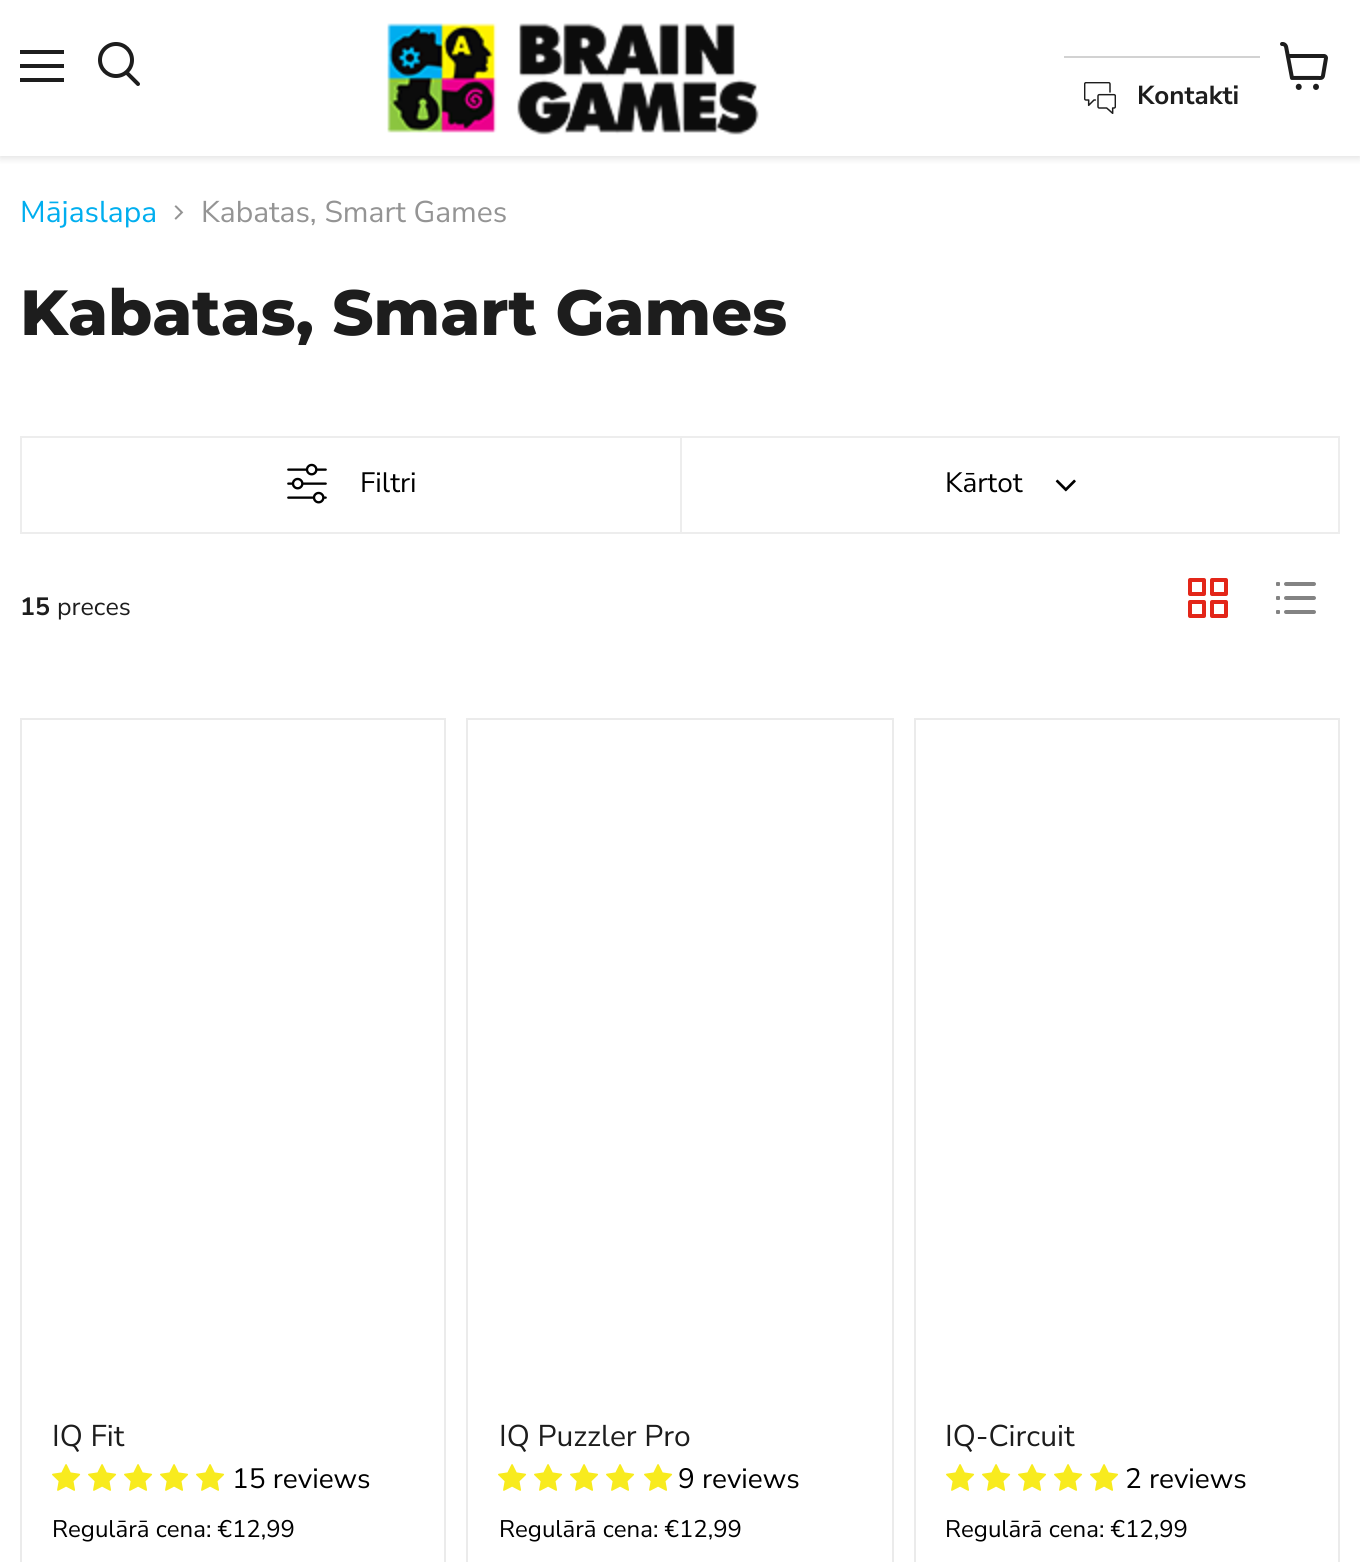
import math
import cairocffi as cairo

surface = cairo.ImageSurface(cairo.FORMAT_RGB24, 1360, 1562)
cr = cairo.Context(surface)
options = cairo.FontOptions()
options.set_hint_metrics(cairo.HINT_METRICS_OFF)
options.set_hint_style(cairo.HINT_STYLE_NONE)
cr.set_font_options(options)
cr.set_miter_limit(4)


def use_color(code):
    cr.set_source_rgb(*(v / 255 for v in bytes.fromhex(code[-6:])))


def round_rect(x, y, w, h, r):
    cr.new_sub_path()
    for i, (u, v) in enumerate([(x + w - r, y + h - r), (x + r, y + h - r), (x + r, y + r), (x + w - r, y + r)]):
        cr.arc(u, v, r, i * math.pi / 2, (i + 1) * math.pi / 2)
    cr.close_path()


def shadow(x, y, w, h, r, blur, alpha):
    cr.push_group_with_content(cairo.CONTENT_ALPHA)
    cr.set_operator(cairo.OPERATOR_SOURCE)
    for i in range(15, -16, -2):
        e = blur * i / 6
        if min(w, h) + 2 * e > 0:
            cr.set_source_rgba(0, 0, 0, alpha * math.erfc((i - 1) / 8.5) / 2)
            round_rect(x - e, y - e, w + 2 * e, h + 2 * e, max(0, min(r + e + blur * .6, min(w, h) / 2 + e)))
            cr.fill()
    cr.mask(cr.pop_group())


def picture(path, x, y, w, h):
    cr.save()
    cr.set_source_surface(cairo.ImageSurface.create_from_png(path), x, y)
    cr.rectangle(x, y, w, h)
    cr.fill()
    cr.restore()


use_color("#ffffff")
cr.paint()
cr.save()
cr.rectangle(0, 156, 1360, 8)
cr.clip()
use_color("#808080")
shadow(0, 2, 1360, 156, 0, 4, 0.25)
cr.restore()
use_color("#1d1d1d")
cr.rectangle(20, 50, 44, 4)
cr.fill()
cr.rectangle(20, 64, 44, 4)
cr.fill()
cr.rectangle(20, 78, 44, 4)
cr.fill()
cr.new_path()
cr.move_to(138, 84)
cr.line_to(127, 73)
cr.set_line_width(4)
cr.set_line_cap(cairo.LINE_CAP_ROUND)
cr.stroke()
cr.arc(116, 60, 16, 0, 2 * math.pi)
cr.set_line_cap(cairo.LINE_CAP_BUTT)
cr.stroke()
picture("img1.png", 1280, 42, 48, 48)
picture("img2.png", 387, 23, 372, 112)
use_color("#d2d2d2")
cr.rectangle(1064, 56, 196, 2)
cr.fill()
picture("img3.png", 1084, 82, 32, 32)
cr.select_font_face("Nunito Sans", cairo.FONT_SLANT_NORMAL, cairo.FONT_WEIGHT_BOLD)
cr.set_font_size(26)
use_color("#1d1d1d")
cr.move_to(1137, 104)
cr.show_text("Kontakti")
cr.select_font_face("Nunito Sans")
cr.set_font_size(30)
use_color("#00aeef")
cr.move_to(20, 222)
cr.show_text("Mājaslapa")
picture("img4.png", 174, 205, 10, 15)
use_color("#949494")
cr.move_to(201, 222)
cr.show_text("Kabatas, Smart Games")
cr.select_font_face("Montserrat ExtraBold")
cr.set_font_size(63.75)
use_color("#1d1d1d")
cr.move_to(20, 335)
cr.show_text("Kabatas, Smart Games")
use_color("#ededed")
cr.rectangle(20, 436, 660, 2)
cr.fill()
cr.rectangle(20, 532, 660, 2)
cr.fill()
cr.rectangle(20, 436, 2, 98)
cr.fill()
picture("img5.png", 287, 463, 40, 41)
cr.select_font_face("Nunito Sans")
cr.set_font_size(28)
use_color("#000000")
cr.move_to(360, 492)
cr.show_text("Filtri")
cr.rectangle(681, 437, 658, 96)
use_color("#ededed")
cr.set_line_width(2)
cr.stroke()
use_color("#000000")
cr.move_to(945, 492)
cr.show_text("Kārtot")
picture("img6.png", 1055, 479, 21, 13)
cr.select_font_face("Nunito Sans", cairo.FONT_SLANT_NORMAL, cairo.FONT_WEIGHT_BOLD)
cr.set_font_size(25)
use_color("#1d1d1d")
cr.move_to(20, 615)
cr.show_text("15")
cr.select_font_face("Nunito Sans")
cr.move_to(57, 615)
cr.show_text("preces")
picture("img7.png", 1188, 578, 40, 40)
picture("img8.png", 1276, 582, 40, 32)
cr.rectangle(21, 719, 424, 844)
use_color("#ebebeb")
cr.stroke()
cr.set_font_size(30)
use_color("#1d1d1d")
cr.move_to(52, 1446)
cr.show_text("IQ Fit")
picture("img9.png", 52, 1464, 29, 27)
picture("img9.png", 88, 1464, 29, 27)
picture("img9.png", 124, 1464, 29, 27)
picture("img9.png", 160, 1464, 29, 27)
picture("img9.png", 196, 1464, 29, 27)
cr.set_font_size(28)
use_color("#000000")
cr.move_to(232, 1488)
cr.show_text("15 reviews")
cr.set_font_size(24)
cr.move_to(52, 1537)
cr.show_text("Regulārā cena: €12,99")
cr.rectangle(467, 719, 426, 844)
use_color("#ebebeb")
cr.stroke()
cr.set_font_size(30)
use_color("#1d1d1d")
cr.move_to(499, 1446)
cr.show_text("IQ Puzzler Pro")
picture("img9.png", 498, 1464, 29, 27)
picture("img9.png", 534, 1464, 29, 27)
picture("img9.png", 570, 1464, 29, 27)
picture("img9.png", 606, 1464, 29, 27)
picture("img9.png", 644, 1464, 29, 27)
cr.set_font_size(28)
use_color("#000000")
cr.move_to(678, 1488)
cr.show_text("9 reviews")
cr.set_font_size(24)
cr.move_to(499, 1537)
cr.show_text("Regulārā cena: €12,99")
cr.rectangle(915, 719, 424, 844)
use_color("#ebebeb")
cr.stroke()
cr.set_font_size(30)
use_color("#1d1d1d")
cr.move_to(945, 1446)
cr.show_text("IQ-Circuit")
picture("img9.png", 946, 1464, 29, 27)
picture("img9.png", 982, 1464, 29, 27)
picture("img9.png", 1018, 1464, 29, 27)
picture("img9.png", 1054, 1464, 29, 27)
picture("img9.png", 1090, 1464, 29, 27)
cr.set_font_size(28)
use_color("#000000")
cr.move_to(1125, 1488)
cr.show_text("2 reviews")
cr.set_font_size(24)
cr.move_to(945, 1537)
cr.show_text("Regulārā cena: €12,99")
surface.write_to_png("result.png")
